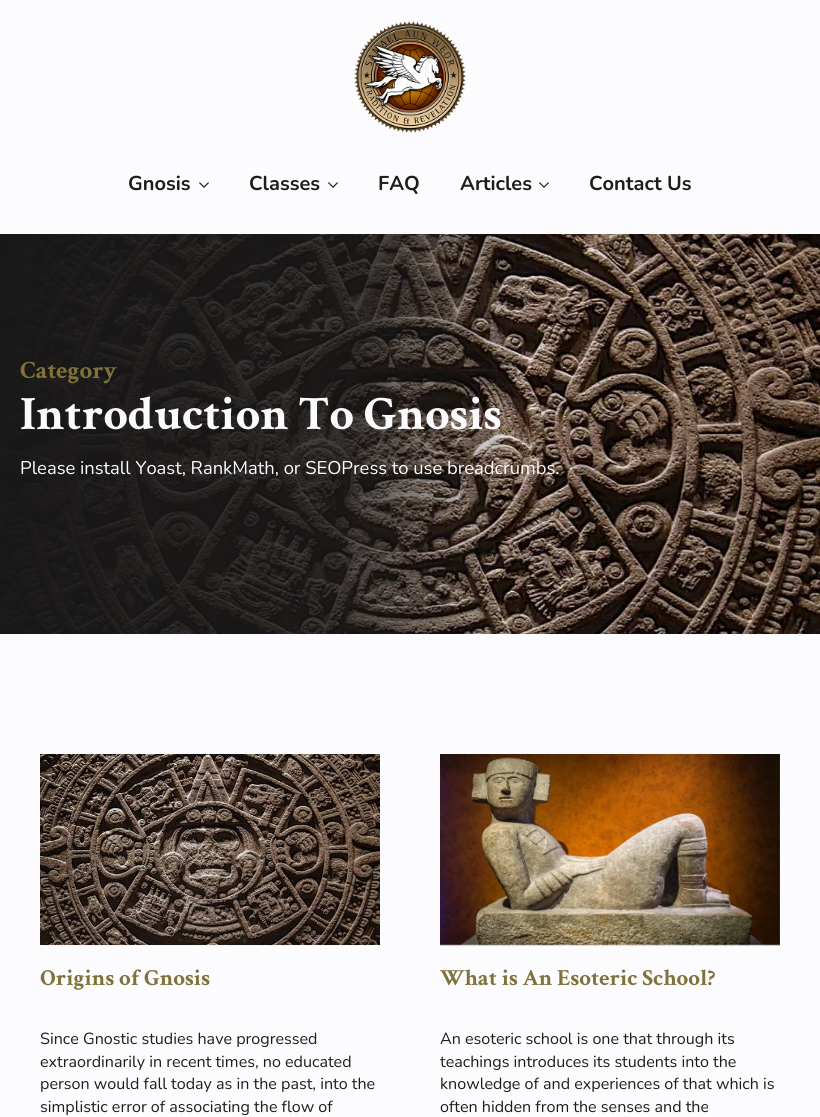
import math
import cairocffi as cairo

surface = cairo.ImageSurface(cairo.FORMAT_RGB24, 820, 1117)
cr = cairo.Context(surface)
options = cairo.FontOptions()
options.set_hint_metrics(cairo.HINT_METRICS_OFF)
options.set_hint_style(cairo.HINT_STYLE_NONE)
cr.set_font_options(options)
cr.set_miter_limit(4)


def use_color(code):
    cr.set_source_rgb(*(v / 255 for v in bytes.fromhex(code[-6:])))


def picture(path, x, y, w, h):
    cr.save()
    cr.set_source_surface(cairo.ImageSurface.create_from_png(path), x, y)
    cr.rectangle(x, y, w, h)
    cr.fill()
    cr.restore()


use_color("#fcfcff")
cr.paint()
picture("img1.png", 354, 21, 112, 112)
cr.select_font_face("Nunito", cairo.FONT_SLANT_NORMAL, cairo.FONT_WEIGHT_BOLD)
cr.set_font_size(20)
use_color("#1d1d1d")
cr.move_to(128, 190)
cr.show_text("Gnosis")
picture("img2.png", 199, 182, 10, 6)
cr.move_to(249, 190)
cr.show_text("Classes")
picture("img2.png", 328, 182, 10, 6)
cr.move_to(378, 190)
cr.show_text("FAQ")
cr.move_to(460, 190)
cr.show_text("Articles")
picture("img2.png", 539, 182, 10, 6)
cr.move_to(589, 190)
cr.show_text("Contact Us")
picture("img3.png", 0, 234, 820, 400)
cr.select_font_face("Crimson Text", cairo.FONT_SLANT_NORMAL, cairo.FONT_WEIGHT_BOLD)
cr.set_font_size(25)
use_color("#81723c")
cr.move_to(20, 378)
cr.show_text("Category")
cr.set_font_size(48)
use_color("#fbfbfe")
cr.move_to(20, 429)
cr.show_text("Introduction To Gnosis")
cr.select_font_face("Nunito")
cr.set_font_size(18.4)
cr.move_to(20, 474)
cr.show_text("Please install Yoast, RankMath, or SEOPress to use breadcrumbs.")
picture("img4.png", 40, 754, 340, 192)
cr.select_font_face("Crimson Text", cairo.FONT_SLANT_NORMAL, cairo.FONT_WEIGHT_BOLD)
cr.set_font_size(23)
use_color("#81723c")
cr.move_to(40, 985)
cr.show_text("Origins of Gnosis")
cr.select_font_face("Nunito")
cr.set_font_size(16.1)
use_color("#1d1d1d")
cr.move_to(40, 1044)
cr.show_text("Since Gnostic studies have progressed")
cr.move_to(40, 1067)
cr.show_text("extraordinarily in recent times, no educated")
cr.move_to(40, 1089)
cr.show_text("person would fall today as in the past, into the")
cr.move_to(40, 1112)
cr.show_text("simplistic error of associating the flow of")
picture("img5.png", 440, 754, 340, 192)
cr.select_font_face("Crimson Text", cairo.FONT_SLANT_NORMAL, cairo.FONT_WEIGHT_BOLD)
cr.set_font_size(23)
use_color("#81723c")
cr.move_to(440, 985)
cr.show_text("What is An Esoteric School?")
cr.select_font_face("Nunito")
cr.set_font_size(16.1)
use_color("#1d1d1d")
cr.move_to(440, 1044)
cr.show_text("An esoteric school is one that through its")
cr.move_to(440, 1067)
cr.show_text("teachings introduces its students into the")
cr.move_to(440, 1089)
cr.show_text("knowledge of and experiences of that which is")
cr.move_to(440, 1112)
cr.show_text("often hidden from the senses and the")
surface.write_to_png("result.png")
